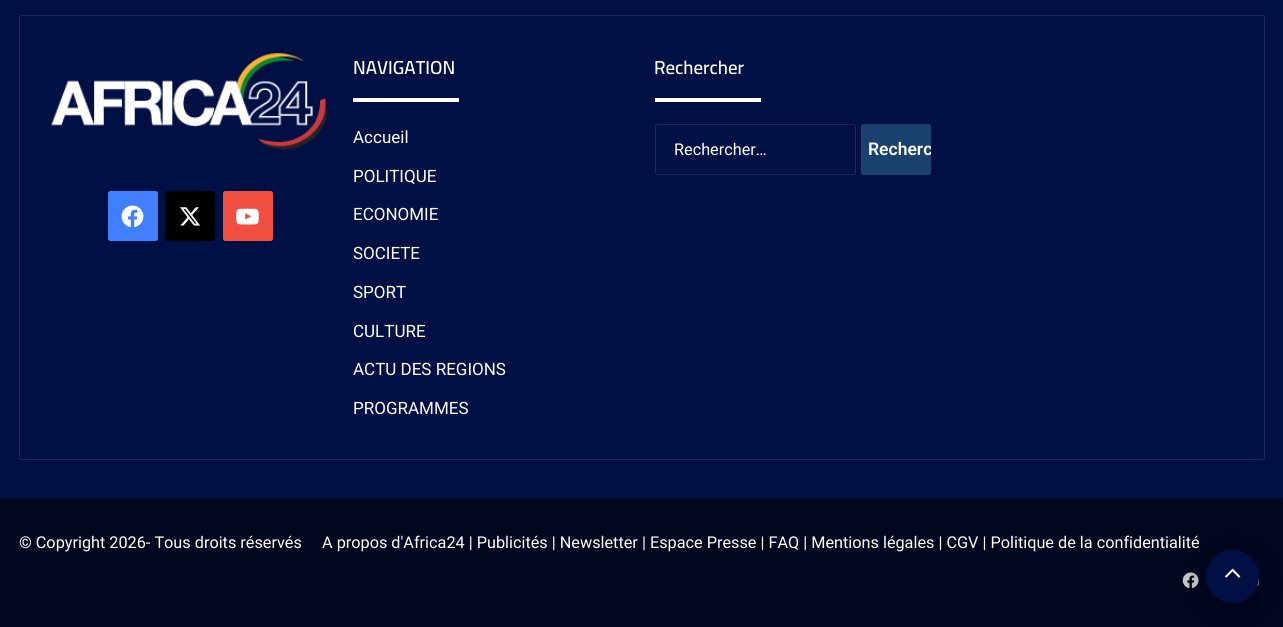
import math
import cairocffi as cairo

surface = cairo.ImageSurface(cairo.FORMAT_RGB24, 1283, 627)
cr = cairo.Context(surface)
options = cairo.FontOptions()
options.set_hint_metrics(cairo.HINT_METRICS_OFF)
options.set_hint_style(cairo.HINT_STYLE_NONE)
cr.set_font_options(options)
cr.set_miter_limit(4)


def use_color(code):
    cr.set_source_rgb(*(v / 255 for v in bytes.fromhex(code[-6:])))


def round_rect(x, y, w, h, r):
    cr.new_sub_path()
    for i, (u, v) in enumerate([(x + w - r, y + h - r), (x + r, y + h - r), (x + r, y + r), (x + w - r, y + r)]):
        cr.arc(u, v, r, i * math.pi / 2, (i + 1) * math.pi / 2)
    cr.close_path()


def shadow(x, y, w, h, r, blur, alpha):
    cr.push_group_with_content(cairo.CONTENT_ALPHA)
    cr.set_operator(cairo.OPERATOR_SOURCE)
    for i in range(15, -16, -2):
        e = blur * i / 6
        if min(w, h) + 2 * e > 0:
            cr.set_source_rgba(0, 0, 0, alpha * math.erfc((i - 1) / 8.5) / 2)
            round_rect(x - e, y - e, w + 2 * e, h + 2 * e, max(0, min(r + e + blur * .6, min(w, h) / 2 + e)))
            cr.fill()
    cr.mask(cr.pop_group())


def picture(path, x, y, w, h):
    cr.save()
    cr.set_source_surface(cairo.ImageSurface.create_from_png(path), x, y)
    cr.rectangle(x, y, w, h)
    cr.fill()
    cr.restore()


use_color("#000f44")
cr.paint()
round_rect(19.5, 15.5, 1245, 444, 2)
use_color("#1a2757")
cr.set_line_width(1)
cr.stroke()
picture("img1.png", 51, 53, 277, 97)
use_color("#4080ff")
round_rect(108, 191, 50, 50, 2.5)
cr.fill()
picture("img2.png", 121, 205, 23, 23)
use_color("#000000")
round_rect(165, 191, 50, 50, 2.5)
cr.fill()
picture("img3.png", 180, 207, 20, 19)
use_color("#ef4e41")
round_rect(223, 191, 50, 50, 2.5)
cr.fill()
picture("img4.png", 236, 208, 23, 17)
cr.select_font_face("Cairo SemiBold")
cr.set_font_size(18.75)
use_color("#ffffff")
cr.move_to(353, 74)
cr.show_text("NAVIGATION")
cr.rectangle(353, 98, 106, 4)
cr.fill()
cr.select_font_face("Roboto")
cr.set_font_size(17)
cr.move_to(353, 143)
cr.show_text("Accueil")
cr.move_to(353, 182)
cr.show_text("POLITIQUE")
cr.move_to(353, 220)
cr.show_text("ECONOMIE")
cr.move_to(353, 259)
cr.show_text("SOCIETE")
cr.move_to(353, 298)
cr.show_text("SPORT")
cr.move_to(353, 337)
cr.show_text("CULTURE")
cr.move_to(353, 375)
cr.show_text("ACTU DES REGIONS")
cr.move_to(353, 414)
cr.show_text("PROGRAMMES")
cr.select_font_face("Cairo SemiBold")
cr.set_font_size(18.75)
cr.move_to(654, 74)
cr.show_text("Rechercher")
cr.rectangle(655, 98, 106, 4)
cr.fill()
round_rect(655.5, 124.5, 200, 50, 2)
use_color("#1a2757")
cr.stroke()
cr.select_font_face("Roboto")
cr.set_font_size(16.25)
use_color("#ffffff")
cr.move_to(674, 155)
cr.show_text("Rechercher…")
use_color("#1a416d")
round_rect(861, 124, 70, 51, 2.5)
cr.fill()
cr.save()
round_rect(861, 124, 70, 51, 2.5)
cr.clip()
cr.select_font_face("Roboto SemiBold")
cr.set_font_size(17.5)
use_color("#ffffff")
cr.move_to(868, 155)
cr.show_text("Recherc")
cr.restore()
use_color("#00071e")
cr.rectangle(0, 498, 1283, 129)
cr.fill()
use_color("#ffffff")
cr.move_to(19, 548)
cr.show_text("© Copyright 2026- Tous droits réservés")
cr.move_to(322, 548)
cr.show_text("A propos d'Africa24 | Publicités | Newsletter | Espace Presse | FAQ | Mentions légales | CGV | Politique de la confidentialité")
picture("img5.png", 1182, 572, 17, 17)
picture("img6.png", 1256, 576, 3, 11)
use_color("#000000")
shadow(1206, 556, 53, 53, 26.5, 15.5, 0.3)
use_color("#000f44")
cr.arc(1232.5, 576.5, 26.5, 0, 2 * math.pi)
cr.fill()
picture("img7.png", 1225, 568, 16, 10)
surface.write_to_png("result.png")
